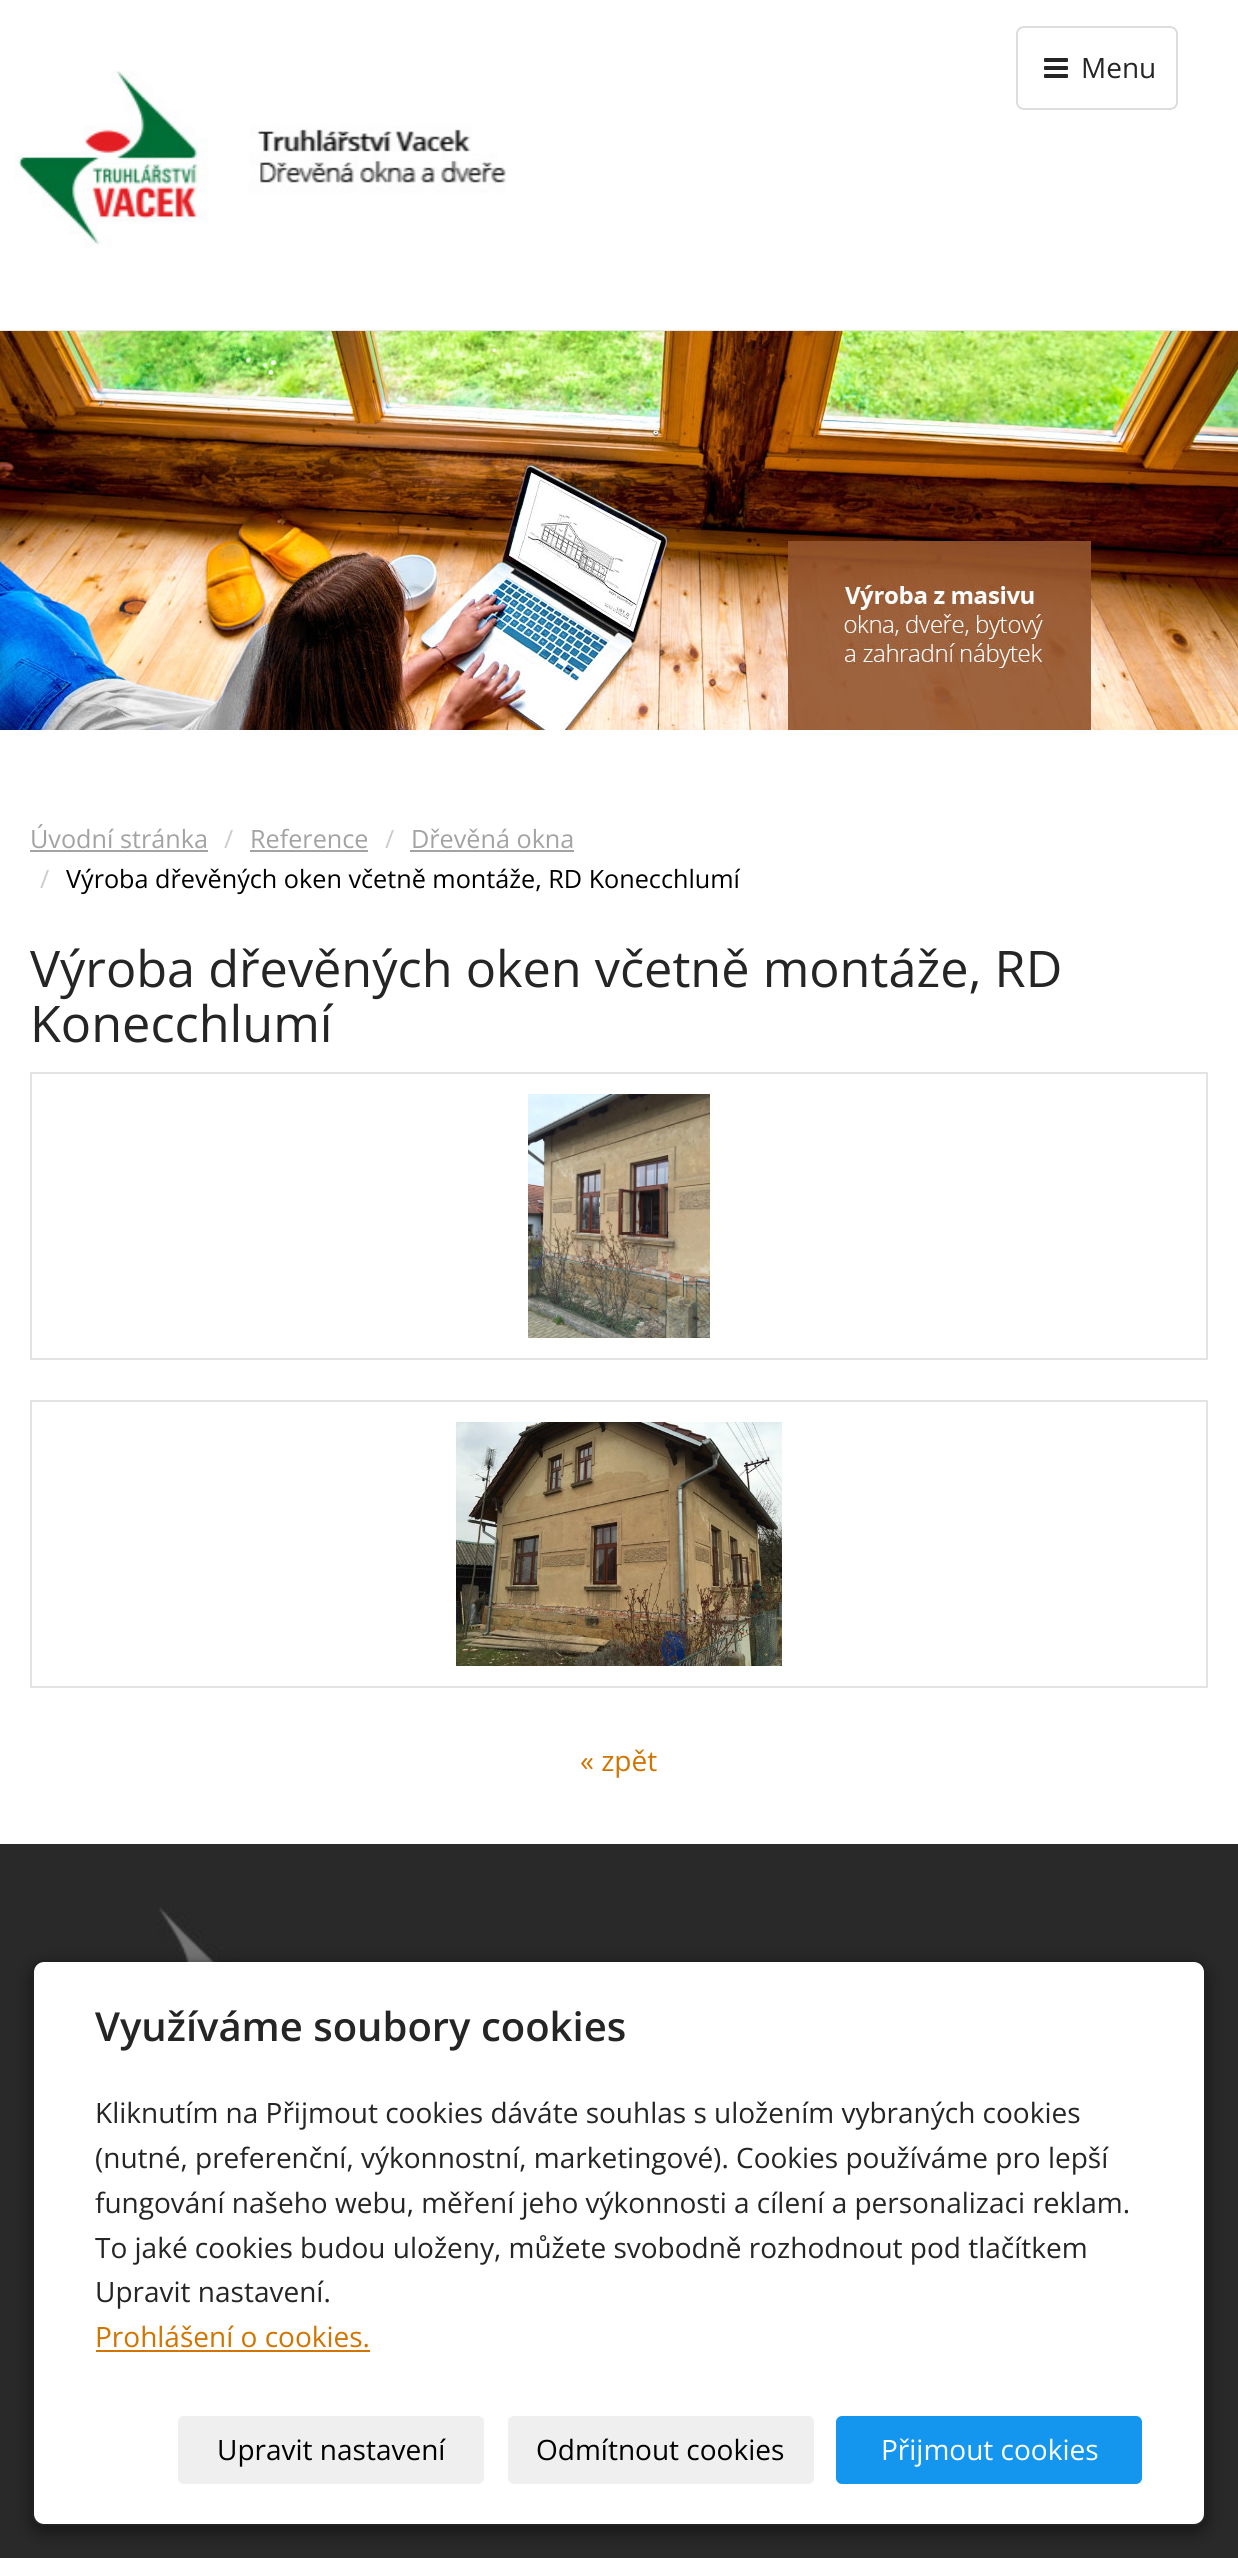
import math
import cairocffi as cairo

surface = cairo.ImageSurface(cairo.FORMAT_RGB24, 1238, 2558)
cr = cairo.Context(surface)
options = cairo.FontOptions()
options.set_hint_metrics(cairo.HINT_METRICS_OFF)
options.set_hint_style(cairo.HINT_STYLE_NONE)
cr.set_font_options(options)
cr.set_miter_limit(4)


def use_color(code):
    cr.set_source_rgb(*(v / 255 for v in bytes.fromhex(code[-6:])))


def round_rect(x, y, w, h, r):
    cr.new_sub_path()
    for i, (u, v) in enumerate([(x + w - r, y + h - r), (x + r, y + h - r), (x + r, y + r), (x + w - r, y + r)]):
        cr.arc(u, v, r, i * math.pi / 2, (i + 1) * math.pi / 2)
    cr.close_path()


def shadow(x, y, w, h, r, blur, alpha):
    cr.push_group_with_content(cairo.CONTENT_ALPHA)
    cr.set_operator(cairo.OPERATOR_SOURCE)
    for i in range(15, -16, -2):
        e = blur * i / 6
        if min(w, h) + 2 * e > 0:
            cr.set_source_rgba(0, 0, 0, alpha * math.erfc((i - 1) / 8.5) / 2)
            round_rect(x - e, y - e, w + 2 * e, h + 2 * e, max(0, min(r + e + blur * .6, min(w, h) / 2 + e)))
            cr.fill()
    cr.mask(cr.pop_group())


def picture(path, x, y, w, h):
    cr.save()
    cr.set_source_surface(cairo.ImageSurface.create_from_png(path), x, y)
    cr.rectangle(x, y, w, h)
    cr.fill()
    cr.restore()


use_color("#ffffff")
cr.paint()
picture("img1.png", 14, 70, 492, 179)
round_rect(1017, 27, 160, 82, 7)
use_color("#dddddd")
cr.stroke()
picture("img2.png", 1044, 58, 24, 20)
cr.select_font_face("Open Sans")
cr.set_font_size(28)
use_color("#252525")
cr.move_to(1081, 78)
cr.show_text("Menu")
picture("img3.png", 0, 330, 1238, 400)
cr.set_font_size(25.2)
use_color("#a3a3a3")
cr.move_to(30, 848)
cr.show_text("Úvodní stránka")
cr.rectangle(30, 850, 178, 2)
cr.fill()
use_color("#cccccc")
cr.move_to(224, 848)
cr.show_text("/")
use_color("#a3a3a3")
cr.move_to(250, 848)
cr.show_text("Reference")
cr.rectangle(250, 850, 118, 2)
cr.fill()
use_color("#cccccc")
cr.move_to(385, 848)
cr.show_text("/")
use_color("#a3a3a3")
cr.move_to(411, 848)
cr.show_text("Dřevěná okna")
cr.rectangle(410, 850, 164, 2)
cr.fill()
use_color("#cccccc")
cr.move_to(40, 888)
cr.show_text("/")
use_color("#000000")
cr.move_to(66, 888)
cr.show_text("Výroba dřevěných oken včetně montáže, RD Konecchlumí")
cr.set_font_size(50.4)
use_color("#252525")
cr.move_to(30, 987)
cr.show_text("Výroba dřevěných oken včetně montáže, RD")
cr.move_to(30, 1042)
cr.show_text("Konecchlumí")
cr.rectangle(31, 1073, 1176, 286)
use_color("#e3e3e3")
cr.stroke()
picture("img4.png", 528, 1094, 182, 244)
cr.rectangle(31, 1401, 1176, 286)
cr.stroke()
picture("img5.png", 456, 1422, 326, 244)
cr.set_font_size(28)
use_color("#d17400")
cr.move_to(580, 1771)
cr.show_text("« zpět")
use_color("#292929")
cr.rectangle(0, 1844, 1238, 714)
cr.fill()
picture("img6.png", 44, 1907, 209, 55)
cr.save()
cr.set_fill_rule(cairo.FILL_RULE_EVEN_ODD)
cr.new_path()
cr.move_to(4, 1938)
cr.line_to(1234, 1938)
cr.line_to(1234, 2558)
cr.line_to(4, 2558)
cr.close_path()
cr.move_to(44, 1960)
cr.line_to(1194, 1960)
cr.curve_to(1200.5, 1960, 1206, 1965.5, 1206, 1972)
cr.line_to(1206, 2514)
cr.curve_to(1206, 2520.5, 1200.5, 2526, 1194, 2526)
cr.line_to(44, 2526)
cr.curve_to(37.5, 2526, 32, 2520.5, 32, 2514)
cr.line_to(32, 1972)
cr.curve_to(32, 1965.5, 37.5, 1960, 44, 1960)
cr.close_path()
cr.clip()
use_color("#000000")
shadow(32, 1966, 1174, 566, 12, 9, 0.5)
cr.restore()
use_color("#ffffff")
round_rect(34, 1962, 1170, 562, 10)
cr.fill()
round_rect(33, 1961, 1172, 564, 11)
cr.set_source_rgba(0, 0, 0, 0.2)
cr.stroke()
cr.select_font_face("Open Sans SemiBold")
cr.set_font_size(40)
use_color("#252525")
cr.move_to(95, 2041)
cr.show_text("Využíváme soubory cookies")
cr.select_font_face("Open Sans")
cr.set_font_size(28)
cr.move_to(95, 2123)
cr.show_text("Kliknutím na Přijmout cookies dáváte souhlas s uložením vybraných cookies")
cr.move_to(95, 2168)
cr.show_text("(nutné, preferenční, výkonnostní, marketingové). Cookies používáme pro lepší")
cr.move_to(95, 2213)
cr.show_text("fungování našeho webu, měření jeho výkonnosti a cílení a personalizaci reklam.")
cr.move_to(95, 2258)
cr.show_text("To jaké cookies budou uloženy, můžete svobodně rozhodnout pod tlačítkem")
cr.move_to(95, 2302)
cr.show_text("Upravit nastavení.")
use_color("#d17400")
cr.move_to(95, 2347)
cr.show_text("Prohlášení o cookies.")
cr.rectangle(96, 2350, 274, 2)
cr.fill()
use_color("#efefef")
round_rect(178, 2416, 306, 68, 6)
cr.fill()
use_color("#000000")
cr.move_to(217, 2460)
cr.show_text("Upravit nastavení")
use_color("#efefef")
round_rect(508, 2416, 306, 68, 6)
cr.fill()
use_color("#000000")
cr.move_to(536, 2460)
cr.show_text("Odmítnout cookies")
use_color("#1496ee")
round_rect(837, 2417, 304, 66, 5)
cr.fill_preserve()
cr.stroke()
use_color("#ffffff")
cr.move_to(881, 2460)
cr.show_text("Přijmout cookies")
surface.write_to_png("result.png")
